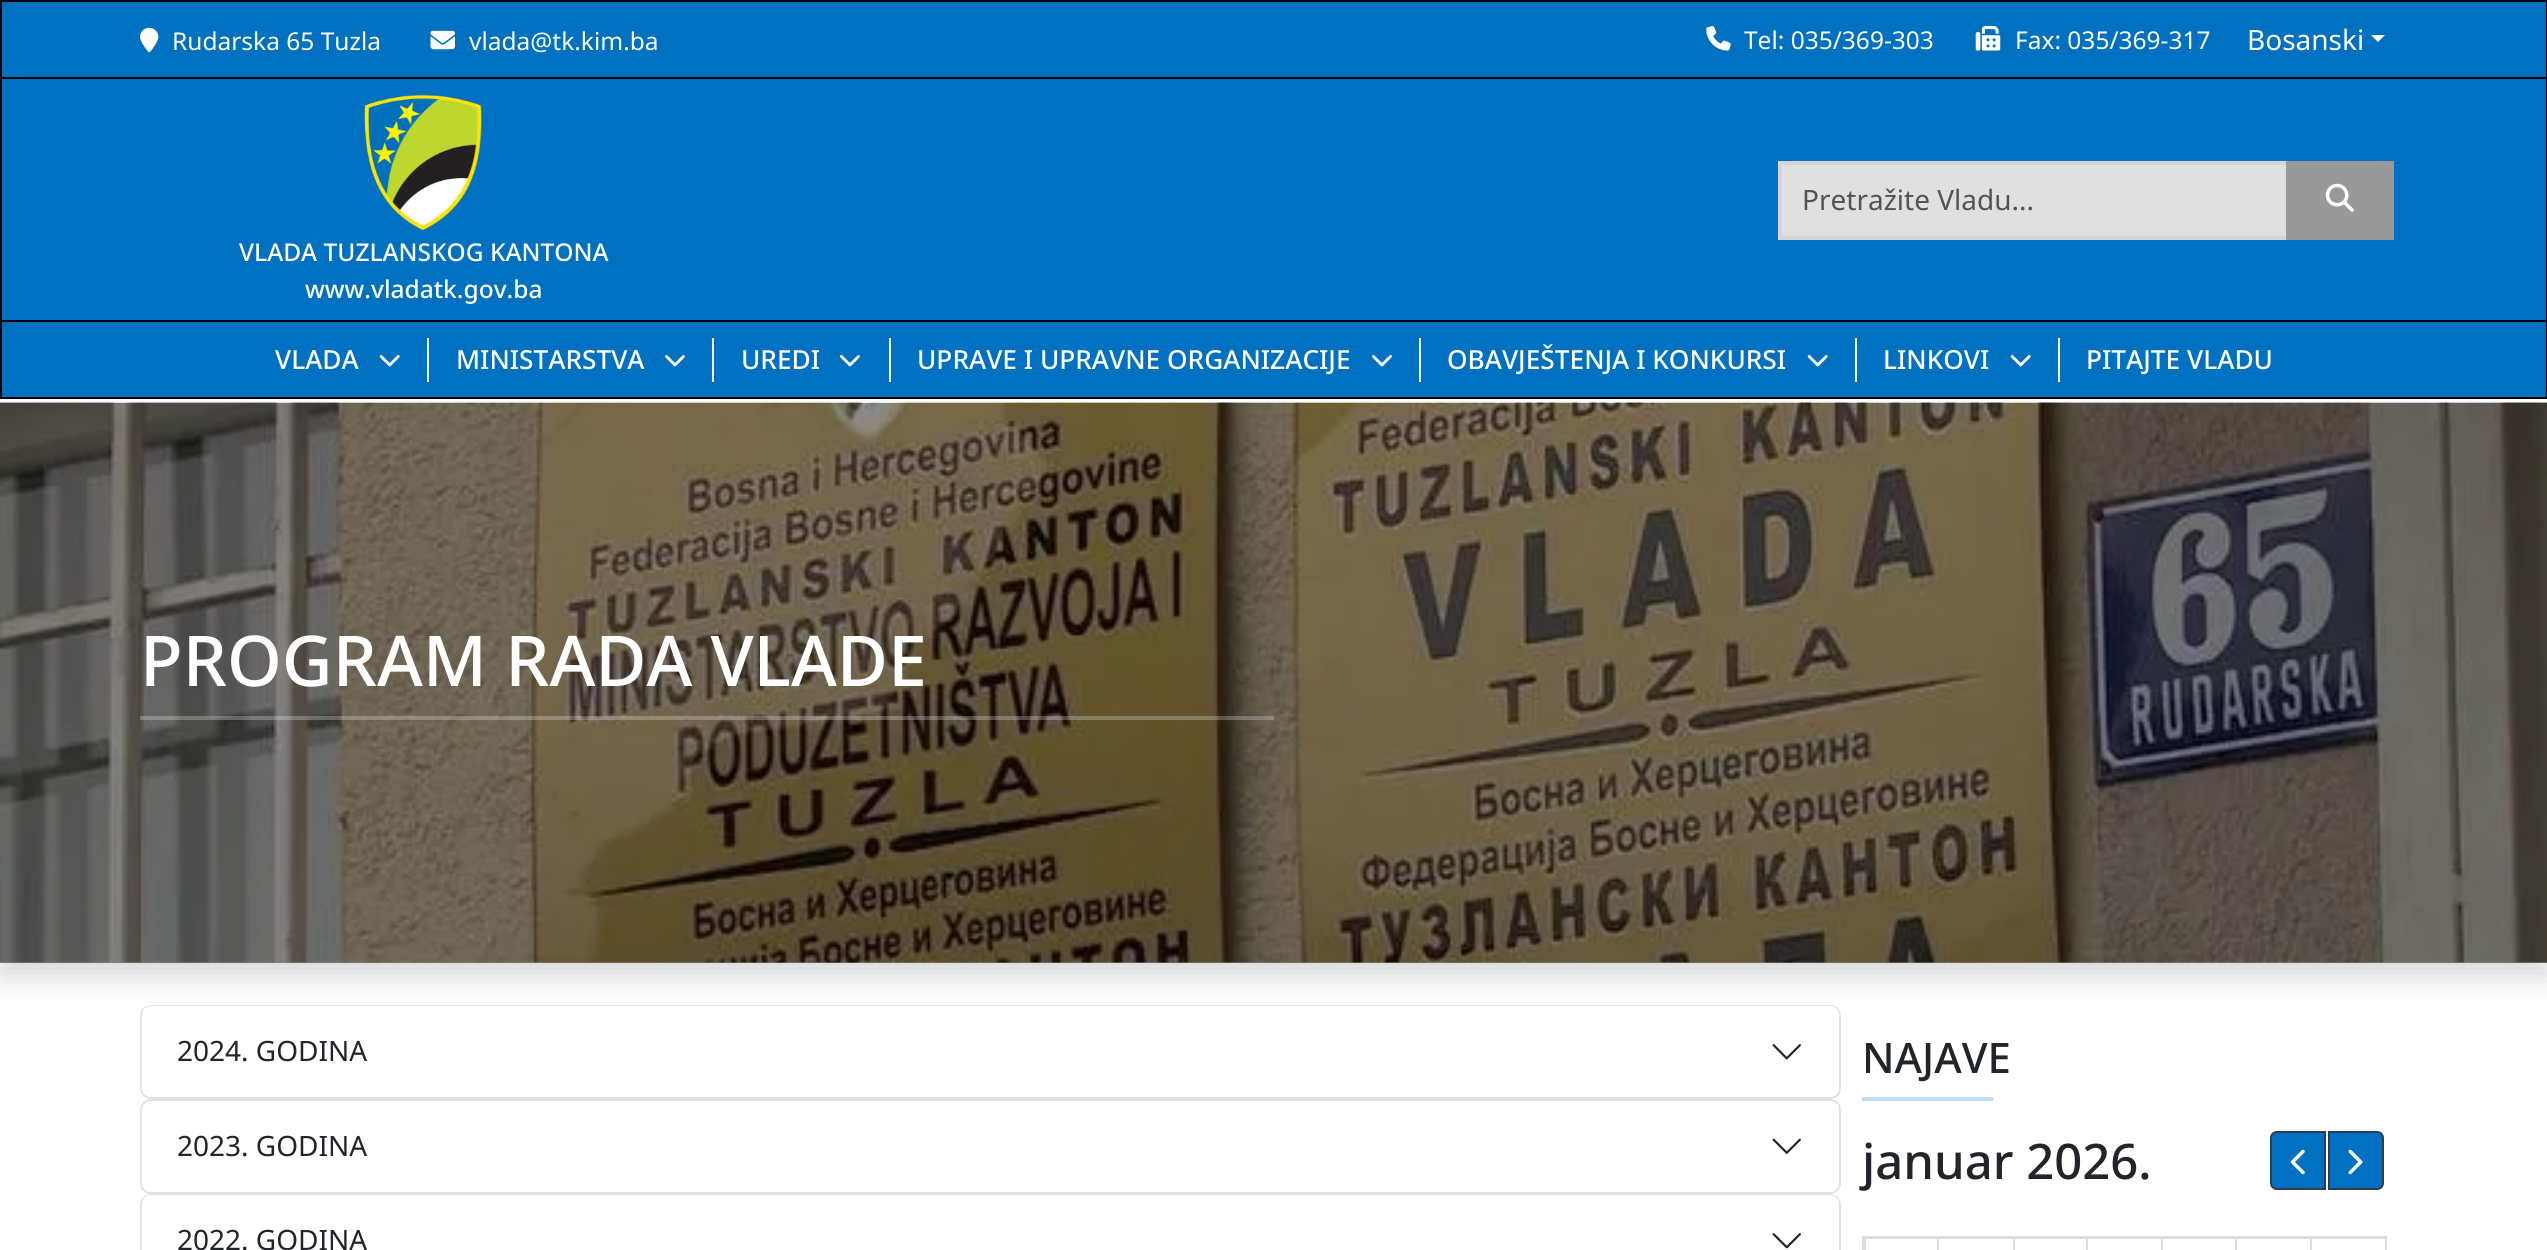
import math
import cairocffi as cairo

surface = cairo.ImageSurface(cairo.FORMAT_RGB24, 2547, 1250)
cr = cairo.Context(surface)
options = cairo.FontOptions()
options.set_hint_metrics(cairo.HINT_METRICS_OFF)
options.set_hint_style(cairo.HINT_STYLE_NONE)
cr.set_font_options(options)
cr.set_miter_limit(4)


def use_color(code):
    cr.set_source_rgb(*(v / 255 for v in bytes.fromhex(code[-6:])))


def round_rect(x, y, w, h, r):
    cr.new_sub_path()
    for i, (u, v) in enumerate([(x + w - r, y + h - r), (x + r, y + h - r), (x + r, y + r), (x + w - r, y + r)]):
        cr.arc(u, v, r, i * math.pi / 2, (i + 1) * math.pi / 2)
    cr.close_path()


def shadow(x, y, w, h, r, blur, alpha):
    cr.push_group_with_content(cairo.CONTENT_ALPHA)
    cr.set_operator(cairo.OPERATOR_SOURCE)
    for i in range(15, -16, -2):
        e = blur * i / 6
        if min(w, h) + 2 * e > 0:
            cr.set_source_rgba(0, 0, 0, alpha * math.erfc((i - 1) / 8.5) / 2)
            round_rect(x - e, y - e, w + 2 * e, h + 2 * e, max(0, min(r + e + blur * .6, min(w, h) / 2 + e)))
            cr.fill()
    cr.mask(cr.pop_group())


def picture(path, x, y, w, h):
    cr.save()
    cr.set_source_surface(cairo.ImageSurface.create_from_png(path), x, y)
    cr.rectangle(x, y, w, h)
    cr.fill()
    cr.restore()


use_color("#ffffff")
cr.paint()
use_color("#0070c0")
cr.rectangle(1, 1, 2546, 77)
cr.fill_preserve()
use_color("#000000")
cr.stroke()
picture("img1.png", 140, 27, 19, 26)
cr.select_font_face("Noto Sans")
cr.set_font_size(24.5)
use_color("#ffffff")
cr.move_to(172, 50)
cr.show_text("Rudarska 65 Tuzla")
picture("img2.png", 430, 30, 25, 20)
cr.move_to(469, 50)
cr.show_text("vlada@tk.kim.ba")
picture("img3.png", 1706, 26, 25, 25)
cr.move_to(1744, 49)
cr.show_text("Tel: 035/369-303")
picture("img4.png", 1975, 26, 26, 25)
cr.move_to(2015, 49)
cr.show_text("Fax: 035/369-317")
cr.set_font_size(28)
cr.move_to(2247, 50)
cr.show_text("Bosanski")
cr.new_path()
cr.move_to(2371, 35)
cr.line_to(2385, 35)
cr.line_to(2378, 42)
cr.close_path()
cr.fill()
use_color("#0070c0")
cr.rectangle(2, 79, 2544, 241)
cr.fill()
use_color("#000000")
shadow(0, 417, 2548, 560, 0, 14, 0.15)
use_color("#000000")
cr.rectangle(2546, 79, 1, 320)
cr.fill()
cr.rectangle(0, 320, 2547, 2)
cr.fill()
cr.rectangle(0, 79, 2, 243)
cr.fill()
use_color("#e0e0e0")
cr.rectangle(1782, 165, 504, 71)
cr.fill()
cr.rectangle(1780, 163, 612, 75)
use_color("#d6d4d4")
cr.set_line_width(4)
cr.stroke()
use_color("#515457")
cr.move_to(1802, 210)
cr.show_text("Pretražite Vladu...")
use_color("#999999")
cr.rectangle(2286, 161, 108, 79)
cr.fill()
picture("img5.png", 2325, 183, 29, 29)
picture("img6.png", 364, 95, 118, 136)
cr.select_font_face("Noto Sans Medium")
cr.set_font_size(24.5)
use_color("#ffffff")
cr.move_to(239, 261)
cr.show_text("VLADA TUZLANSKOG KANTONA")
cr.move_to(305, 298)
cr.show_text("www.vladatk.gov.ba")
use_color("#0070c0")
cr.rectangle(2, 322, 2544, 75)
cr.fill()
use_color("#000000")
cr.rectangle(0, 397, 2547, 2)
cr.fill()
cr.rectangle(0, 322, 2, 77)
cr.fill()
use_color("#ffffff")
cr.rectangle(427, 338, 2, 44)
cr.fill()
cr.set_font_size(26.25)
cr.move_to(275, 369)
cr.show_text("VLADA")
picture("img7.png", 379, 355, 21, 12)
cr.rectangle(712, 338, 2, 44)
cr.fill()
cr.move_to(456, 369)
cr.show_text("MINISTARSTVA")
picture("img8.png", 665, 355, 20, 12)
cr.rectangle(889, 338, 2, 44)
cr.fill()
cr.move_to(741, 369)
cr.show_text("UREDI")
picture("img8.png", 840, 355, 20, 12)
cr.rectangle(1419, 338, 2, 44)
cr.fill()
cr.move_to(917, 369)
cr.show_text("UPRAVE I UPRAVNE ORGANIZACIJE")
picture("img8.png", 1372, 355, 20, 12)
cr.rectangle(1855, 338, 2, 44)
cr.fill()
cr.move_to(1447, 369)
cr.show_text("OBAVJEŠTENJA I KONKURSI")
picture("img7.png", 1807, 355, 21, 12)
cr.rectangle(2058, 338, 2, 44)
cr.fill()
cr.move_to(1883, 369)
cr.show_text("LINKOVI")
picture("img7.png", 2010, 355, 21, 12)
cr.move_to(2086, 369)
cr.show_text("PITAJTE VLADU")
picture("img9.png", 0, 402, 2547, 561)
cr.set_source_rgba(0, 0, 0, 0.4)
cr.rectangle(0, 403, 2547, 560)
cr.fill()
cr.set_font_size(70)
use_color("#ffffff")
cr.move_to(140, 686)
cr.show_text("PROGRAM RADA VLADE")
cr.set_source_rgba(1, 1, 1, 0.25)
cr.rectangle(140, 716, 1134, 4)
cr.fill()
round_rect(141, 1006, 1699, 92, 10)
use_color("#dee2e6")
cr.set_line_width(2)
cr.stroke()
use_color("#ffffff")
round_rect(142, 1006, 1697, 91, 9)
cr.fill()
cr.select_font_face("Noto Sans")
cr.set_font_size(28)
use_color("#212529")
cr.move_to(177, 1061)
cr.show_text("2024. GODINA")
picture("img10.png", 1772, 1044, 29, 16)
round_rect(141, 1100, 1699, 93, 10)
use_color("#dee2e6")
cr.stroke()
use_color("#ffffff")
round_rect(142, 1101, 1697, 91, 9)
cr.fill()
use_color("#212529")
cr.move_to(177, 1156)
cr.show_text("2023. GODINA")
picture("img11.png", 1772, 1138, 29, 16)
round_rect(141, 1195, 1699, 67, 10)
use_color("#dee2e6")
cr.stroke()
use_color("#ffffff")
round_rect(142, 1195, 1697, 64, 9)
cr.fill()
use_color("#212529")
cr.move_to(177, 1250)
cr.show_text("2022. GODINA")
picture("img10.png", 1772, 1233, 29, 16)
cr.select_font_face("Noto Sans Medium")
cr.set_font_size(42)
cr.move_to(1862, 1073)
cr.show_text("NAJAVE")
use_color("#bfdbef")
cr.rectangle(1862, 1097, 131, 4)
cr.fill()
cr.set_font_size(49)
use_color("#212529")
cr.move_to(1862, 1179)
cr.show_text("januar 2026.")
use_color("#0070c0")
cr.new_path()
cr.move_to(2277, 1132)
cr.line_to(2325, 1132)
cr.line_to(2325, 1189)
cr.line_to(2277, 1189)
cr.curve_to(2273.5, 1189, 2271, 1186.5, 2271, 1183)
cr.line_to(2271, 1138)
cr.curve_to(2271, 1134.5, 2273.5, 1132, 2277, 1132)
cr.close_path()
cr.fill_preserve()
use_color("#2c3e50")
cr.stroke()
picture("img12.png", 2290, 1149, 15, 26)
use_color("#0070c0")
cr.new_path()
cr.move_to(2329, 1132)
cr.line_to(2377, 1132)
cr.curve_to(2380.5, 1132, 2383, 1134.5, 2383, 1138)
cr.line_to(2383, 1183)
cr.curve_to(2383, 1186.5, 2380.5, 1189, 2377, 1189)
cr.line_to(2329, 1189)
cr.close_path()
cr.fill_preserve()
use_color("#2c3e50")
cr.stroke()
picture("img13.png", 2348, 1149, 15, 26)
use_color("#dddddd")
cr.rectangle(1862, 1236, 525, 1)
cr.fill()
cr.rectangle(1862, 1236, 2, 14)
cr.fill()
cr.rectangle(2385, 1237, 2, 13)
cr.fill()
cr.rectangle(2310, 1237, 75, 2)
cr.fill()
cr.rectangle(2310, 1237, 2, 13)
cr.fill()
cr.rectangle(2235, 1237, 77, 2)
cr.fill()
cr.rectangle(2235, 1237, 2, 13)
cr.fill()
cr.rectangle(2161, 1237, 76, 2)
cr.fill()
cr.rectangle(2161, 1237, 2, 13)
cr.fill()
cr.rectangle(2086, 1237, 77, 2)
cr.fill()
cr.rectangle(2086, 1237, 2, 13)
cr.fill()
cr.rectangle(2013, 1237, 75, 2)
cr.fill()
cr.rectangle(2013, 1237, 2, 13)
cr.fill()
cr.rectangle(1937, 1237, 77, 2)
cr.fill()
cr.rectangle(1937, 1237, 2, 13)
cr.fill()
cr.rectangle(1864, 1237, 75, 2)
cr.fill()
cr.rectangle(1864, 1237, 2, 13)
cr.fill()
surface.write_to_png("result.png")
